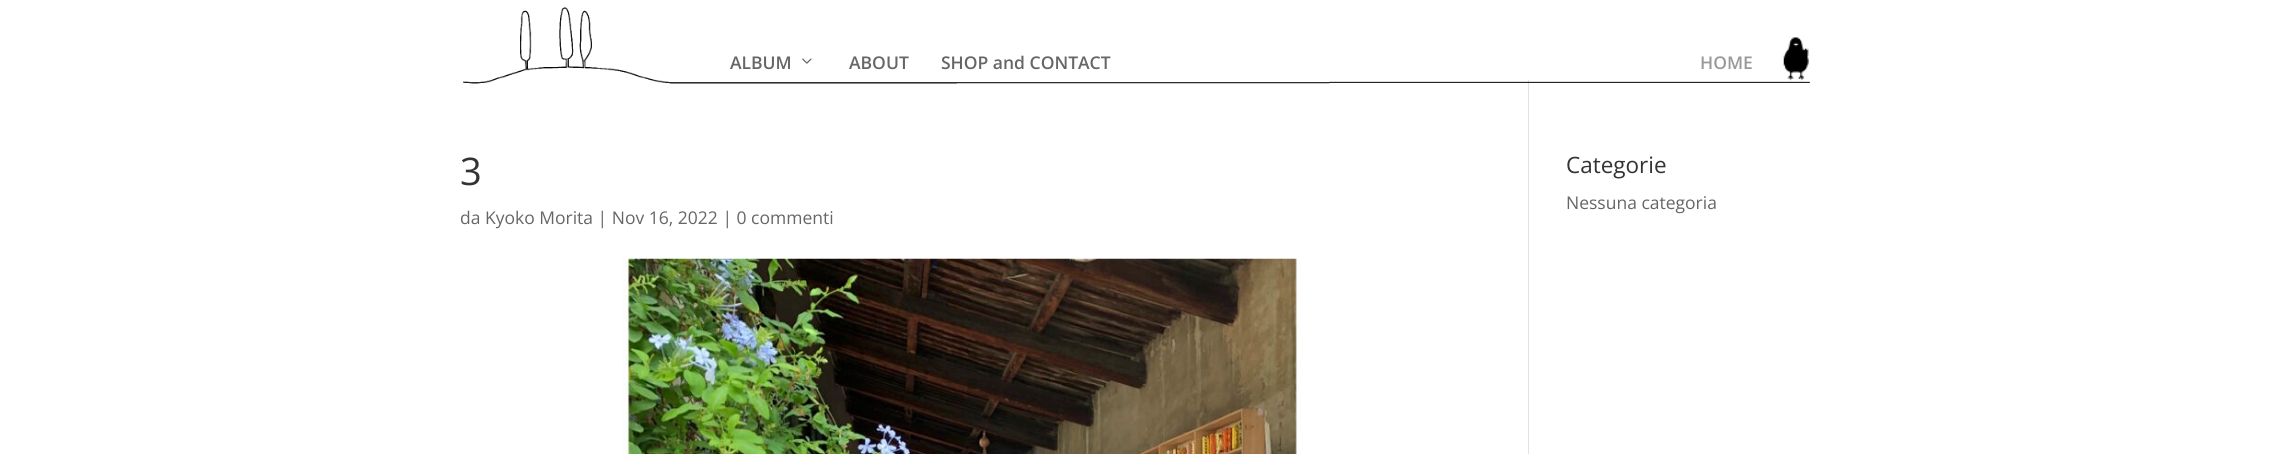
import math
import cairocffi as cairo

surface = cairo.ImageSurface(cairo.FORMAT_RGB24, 2270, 454)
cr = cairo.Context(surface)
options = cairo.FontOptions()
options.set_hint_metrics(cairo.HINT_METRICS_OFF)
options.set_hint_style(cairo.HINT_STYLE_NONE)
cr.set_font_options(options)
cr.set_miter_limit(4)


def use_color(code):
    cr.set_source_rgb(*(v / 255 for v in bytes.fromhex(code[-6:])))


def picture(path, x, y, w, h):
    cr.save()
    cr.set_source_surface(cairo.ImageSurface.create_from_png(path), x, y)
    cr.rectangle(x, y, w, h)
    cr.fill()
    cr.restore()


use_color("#ffffff")
cr.paint()
use_color("#e2e2e2")
cr.rectangle(1528, 80, 1, 374)
cr.fill()
picture("img1.png", 463, 7, 1347, 77)
cr.select_font_face("Open Sans SemiBold")
cr.set_font_size(17.5)
use_color("#666666")
cr.move_to(730, 69)
cr.show_text("ALBUM")
picture("img2.png", 802, 58, 10, 6)
cr.move_to(849, 69)
cr.show_text("ABOUT")
cr.move_to(941, 69)
cr.show_text("SHOP and CONTACT")
picture("img3.png", 1783, 37, 26, 44)
use_color("#999999")
cr.move_to(1700, 69)
cr.show_text("HOME")
cr.select_font_face("Open Sans")
cr.set_font_size(38)
use_color("#333333")
cr.move_to(460, 185)
cr.show_text("3")
cr.set_font_size(17.5)
use_color("#666666")
cr.move_to(460, 224)
cr.show_text("da Kyoko Morita | Nov 16, 2022 | 0 commenti")
picture("img4.png", 622, 258, 677, 196)
cr.set_font_size(22.5)
use_color("#333333")
cr.move_to(1566, 173)
cr.show_text("Categorie")
cr.set_font_size(17.5)
use_color("#666666")
cr.move_to(1566, 209)
cr.show_text("Nessuna categoria")
surface.write_to_png("result.png")
